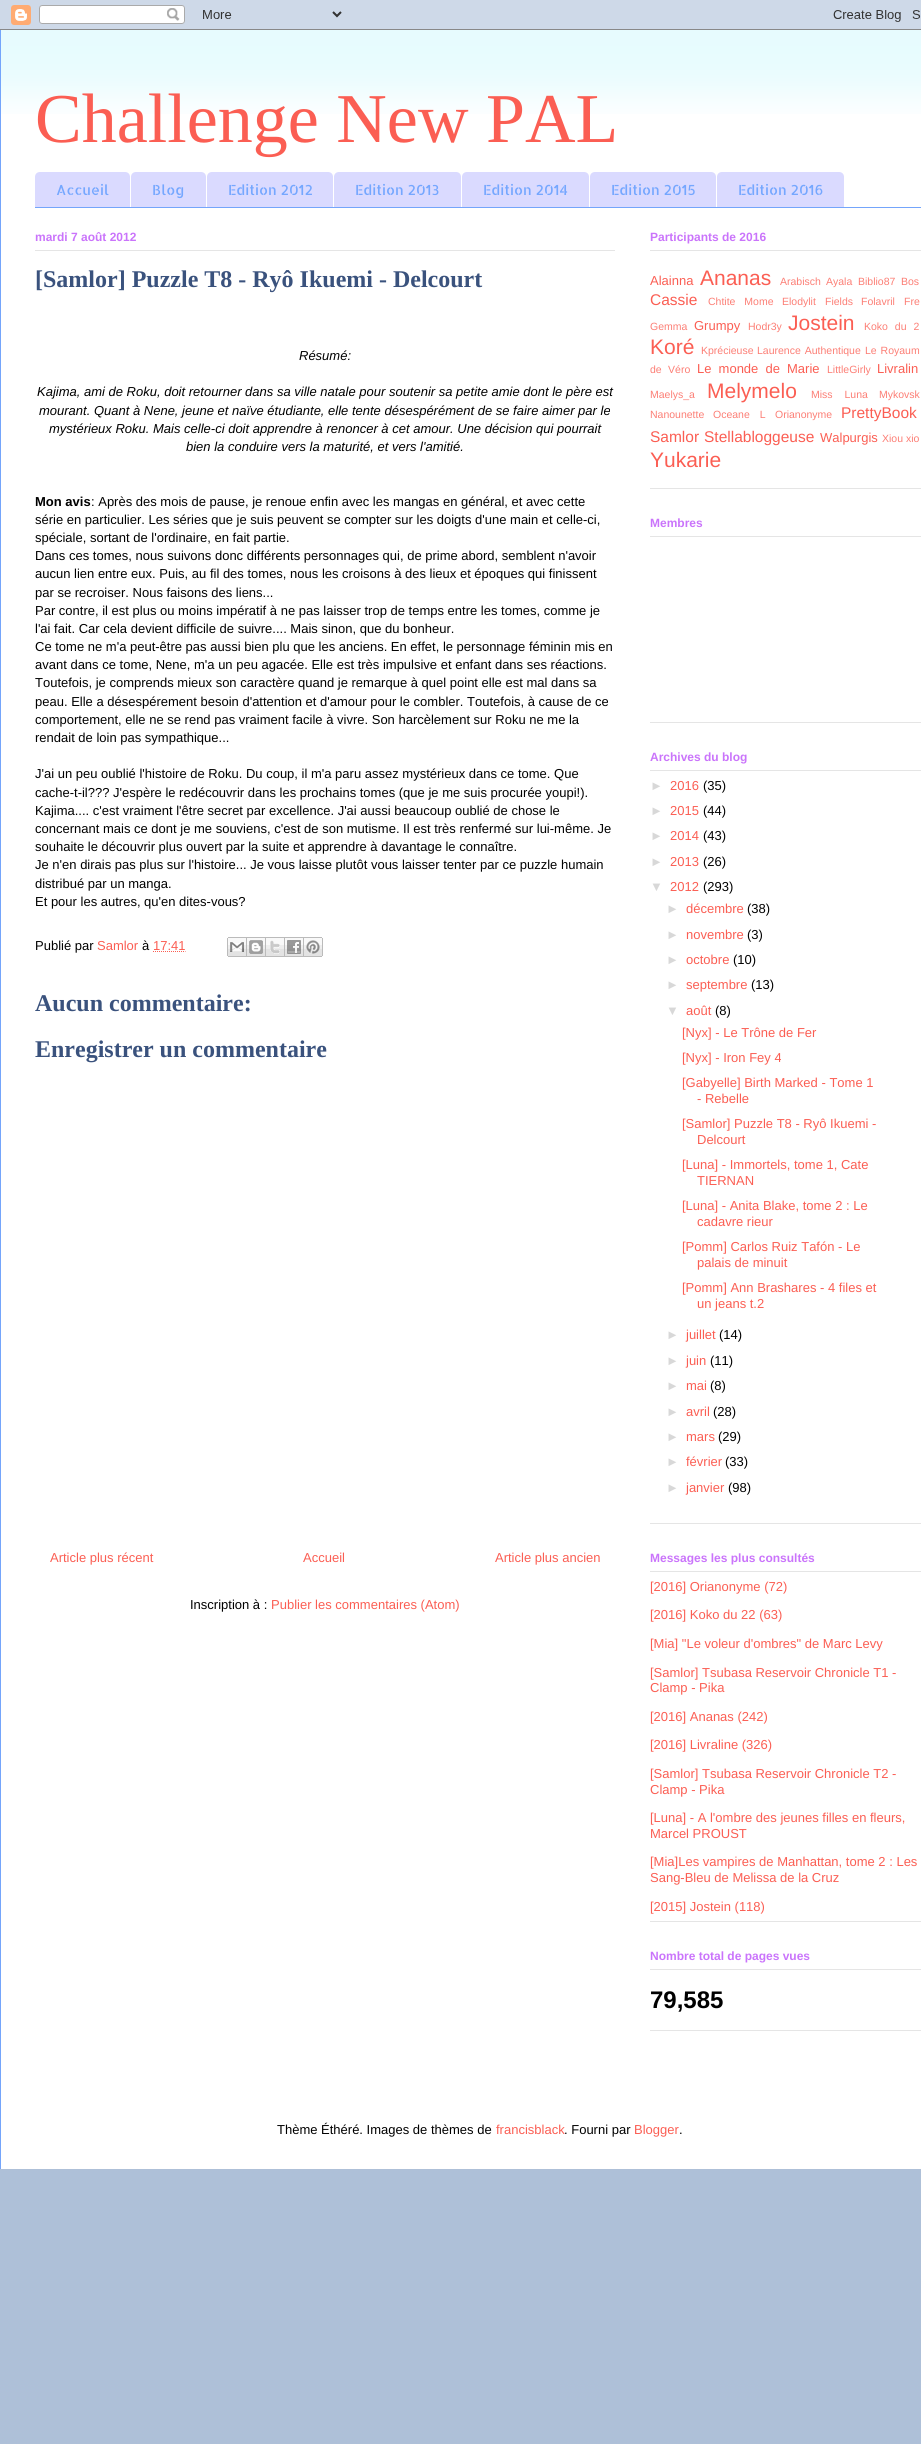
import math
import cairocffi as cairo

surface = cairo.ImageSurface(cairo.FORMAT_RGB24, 921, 2444)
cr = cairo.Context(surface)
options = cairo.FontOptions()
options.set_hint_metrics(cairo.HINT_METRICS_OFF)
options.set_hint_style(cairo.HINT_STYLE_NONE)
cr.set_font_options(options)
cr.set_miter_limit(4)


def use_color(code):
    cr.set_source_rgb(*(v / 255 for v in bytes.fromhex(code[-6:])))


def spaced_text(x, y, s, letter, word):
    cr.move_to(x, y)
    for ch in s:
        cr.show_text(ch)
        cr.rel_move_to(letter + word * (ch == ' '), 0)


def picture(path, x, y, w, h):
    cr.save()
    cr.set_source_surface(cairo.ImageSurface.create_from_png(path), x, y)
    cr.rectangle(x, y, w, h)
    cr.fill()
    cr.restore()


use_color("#aec0d8")
cr.paint()
picture("img1.png", 0, 0, 921, 30)
use_color("#ffffff")
cr.rectangle(1, 30, 920, 2139)
cr.fill()
picture("img2.png", 1, 30, 920, 84)
use_color("#74a5fb")
cr.rectangle(0, 30, 1, 2139)
cr.fill()
cr.select_font_face("Liberation Serif")
cr.set_font_size(70)
use_color("#fb5e53")
cr.move_to(35, 142)
cr.show_text("Challenge New PAL")
use_color("#74a5fb")
cr.rectangle(35, 207, 886, 1)
cr.fill()
use_color("#dadaff")
cr.new_path()
cr.move_to(40, 172)
cr.line_to(125, 172)
cr.curve_to(128, 172, 130, 174, 130, 177)
cr.line_to(130, 207)
cr.line_to(35, 207)
cr.line_to(35, 177)
cr.curve_to(35, 174, 37, 172, 40, 172)
cr.close_path()
cr.fill()
cr.select_font_face("Allerta Stencil")
cr.set_font_size(14)
use_color("#75a7ff")
cr.move_to(56, 195)
cr.show_text("Accueil")
use_color("#dadaff")
cr.new_path()
cr.move_to(136, 172)
cr.line_to(201, 172)
cr.curve_to(204, 172, 206, 174, 206, 177)
cr.line_to(206, 207)
cr.line_to(131, 207)
cr.line_to(131, 177)
cr.curve_to(131, 174, 133, 172, 136, 172)
cr.close_path()
cr.fill()
use_color("#75a7ff")
cr.move_to(152, 195)
cr.show_text("Blog")
use_color("#dadaff")
cr.new_path()
cr.move_to(212, 172)
cr.line_to(328, 172)
cr.curve_to(331, 172, 333, 174, 333, 177)
cr.line_to(333, 207)
cr.line_to(207, 207)
cr.line_to(207, 177)
cr.curve_to(207, 174, 209, 172, 212, 172)
cr.close_path()
cr.fill()
use_color("#75a7ff")
cr.move_to(228, 195)
cr.show_text("Edition 2012")
use_color("#dadaff")
cr.new_path()
cr.move_to(339, 172)
cr.line_to(456, 172)
cr.curve_to(459, 172, 461, 174, 461, 177)
cr.line_to(461, 207)
cr.line_to(334, 207)
cr.line_to(334, 177)
cr.curve_to(334, 174, 336, 172, 339, 172)
cr.close_path()
cr.fill()
use_color("#75a7ff")
cr.move_to(355, 195)
cr.show_text("Edition 2013")
use_color("#dadaff")
cr.new_path()
cr.move_to(467, 172)
cr.line_to(584, 172)
cr.curve_to(587, 172, 589, 174, 589, 177)
cr.line_to(589, 207)
cr.line_to(462, 207)
cr.line_to(462, 177)
cr.curve_to(462, 174, 464, 172, 467, 172)
cr.close_path()
cr.fill()
use_color("#75a7ff")
cr.move_to(483, 195)
cr.show_text("Edition 2014")
use_color("#dadaff")
cr.new_path()
cr.move_to(595, 172)
cr.line_to(711, 172)
cr.curve_to(714, 172, 716, 174, 716, 177)
cr.line_to(716, 207)
cr.line_to(590, 207)
cr.line_to(590, 177)
cr.curve_to(590, 174, 592, 172, 595, 172)
cr.close_path()
cr.fill()
use_color("#75a7ff")
cr.move_to(611, 195)
cr.show_text("Edition 2015")
use_color("#dadaff")
cr.new_path()
cr.move_to(722, 172)
cr.line_to(839, 172)
cr.curve_to(842, 172, 844, 174, 844, 177)
cr.line_to(844, 207)
cr.line_to(717, 207)
cr.line_to(717, 177)
cr.curve_to(717, 174, 719, 172, 722, 172)
cr.close_path()
cr.fill()
use_color("#75a7ff")
cr.move_to(738, 195)
cr.show_text("Edition 2016")
use_color("#e5e5e5")
cr.rectangle(35, 250, 580, 1)
cr.fill()
cr.select_font_face("Liberation Sans", cairo.FONT_SLANT_NORMAL, cairo.FONT_WEIGHT_BOLD)
cr.set_font_size(12)
use_color("#ca74fb")
cr.move_to(35, 241)
cr.show_text("mardi 7 août 2012")
cr.select_font_face("Liberation Serif", cairo.FONT_SLANT_NORMAL, cairo.FONT_WEIGHT_BOLD)
cr.set_font_size(24)
use_color("#3a527d")
cr.move_to(35, 287)
cr.show_text("[Samlor] Puzzle T8 - Ryô Ikuemi - Delcourt")
cr.select_font_face("Liberation Sans", cairo.FONT_SLANT_ITALIC)
cr.set_font_size(13)
use_color("#000000")
cr.move_to(299, 360)
cr.show_text("Résumé:")
cr.move_to(37, 396)
cr.show_text("Kajima, ami de Roku, doit retourner dans sa ville natale pour soutenir sa petite amie dont le père est")
cr.move_to(39, 415)
cr.show_text("mourant. Quant à Nene, jeune et naïve étudiante, elle tente désespérément de se faire aimer par le")
cr.move_to(49, 433)
cr.show_text("mystérieux Roku. Mais celle-ci doit apprendre à renoncer à cet amour. Une décision qui pourrait")
cr.move_to(186, 451)
cr.show_text("bien la conduire vers la maturité, et vers l'amitié.")
cr.select_font_face("Liberation Sans", cairo.FONT_SLANT_NORMAL, cairo.FONT_WEIGHT_BOLD)
cr.move_to(35, 506)
cr.show_text("Mon avis")
cr.select_font_face("Liberation Sans")
cr.move_to(91, 506)
cr.show_text(": Après des mois de pause, je renoue enfin avec les mangas en général, et avec cette")
cr.move_to(35, 524)
cr.show_text("série en particulier. Les séries que je suis peuvent se compter sur les doigts d'une main et celle-ci,")
cr.move_to(35, 542)
cr.show_text("spéciale, sortant de l'ordinaire, en fait partie.")
cr.move_to(35, 560)
cr.show_text("Dans ces tomes, nous suivons donc différents personnages qui, de prime abord, semblent n'avoir")
cr.move_to(35, 578)
cr.show_text("aucun lien entre eux. Puis, au fil des tomes, nous les croisons à des lieux et époques qui finissent")
cr.move_to(35, 597)
cr.show_text("par se recroiser. Nous faisons des liens...")
cr.move_to(35, 615)
cr.show_text("Par contre, il est plus ou moins impératif à ne pas laisser trop de temps entre les tomes, comme je")
cr.move_to(35, 633)
cr.show_text("l'ai fait. Car cela devient difficile de suivre.... Mais sinon, que du bonheur.")
cr.move_to(35, 651)
cr.show_text("Ce tome ne m'a peut-être pas aussi bien plu que les anciens. En effet, le personnage féminin mis en")
cr.move_to(35, 669)
cr.show_text("avant dans ce tome, Nene, m'a un peu agacée. Elle est très impulsive et enfant dans ses réactions.")
cr.move_to(35, 687)
cr.show_text("Toutefois, je comprends mieux son caractère quand je remarque à quel point elle est mal dans sa")
cr.move_to(35, 706)
cr.show_text("peau. Elle a désespérement besoin d'attention et d'amour pour le combler. Toutefois, à cause de ce")
cr.move_to(35, 724)
cr.show_text("comportement, elle ne se rend pas vraiment facile à vivre. Son harcèlement sur Roku ne me la")
cr.move_to(35, 742)
cr.show_text("rendait de loin pas sympathique...")
cr.move_to(35, 778)
cr.show_text("J'ai un peu oublié l'histoire de Roku. Du coup, il m'a paru assez mystérieux dans ce tome. Que")
cr.move_to(35, 797)
cr.show_text("cache-t-il??? J'espère le redécouvrir dans les prochains tomes (que je me suis procurée youpi!).")
cr.move_to(35, 815)
cr.show_text("Kajima.... c'est vraiment l'être secret par excellence. J'ai aussi beaucoup oublié de chose le")
cr.move_to(35, 833)
cr.show_text("concernant mais ce dont je me souviens, c'est de son mutisme. Il est très renfermé sur lui-même. Je")
cr.move_to(35, 851)
cr.show_text("souhaite le découvrir plus ouvert par la suite et apprendre à davantage le connaître.")
cr.move_to(35, 869)
cr.show_text("Je n'en dirais pas plus sur l'histoire... Je vous laisse plutôt vous laisser tenter par ce puzzle humain")
cr.move_to(35, 888)
cr.show_text("distribué par un manga.")
cr.move_to(35, 906)
cr.show_text("Et pour les autres, qu'en dites-vous?")
cr.move_to(35, 950)
cr.show_text("Publié par")
use_color("#fb5e53")
cr.move_to(97, 950)
cr.show_text("Samlor")
use_color("#000000")
cr.move_to(142, 950)
cr.show_text("à")
use_color("#fb5e53")
cr.move_to(153, 950)
cr.show_text("17:41")
cr.new_path()
cr.move_to(153, 951.5)
cr.line_to(185.5, 951.5)
cr.set_line_width(1)
cr.set_dash([1, 1])
cr.stroke()
picture("img3.png", 227, 937, 20, 20)
picture("img4.png", 247, 937, 19, 20)
picture("img5.png", 266, 937, 19, 20)
picture("img6.png", 285, 937, 19, 20)
picture("img7.png", 304, 937, 19, 20)
cr.select_font_face("Liberation Serif", cairo.FONT_SLANT_NORMAL, cairo.FONT_WEIGHT_BOLD)
cr.set_font_size(24)
use_color("#3a527d")
cr.move_to(35, 1011)
cr.show_text("Aucun commentaire:")
cr.move_to(35, 1057)
cr.show_text("Enregistrer un commentaire")
cr.select_font_face("Liberation Sans")
cr.set_font_size(13)
use_color("#fb5e53")
cr.move_to(50, 1562)
cr.show_text("Article plus récent")
cr.move_to(303, 1562)
cr.show_text("Accueil")
cr.move_to(495, 1562)
cr.show_text("Article plus ancien")
use_color("#000000")
cr.move_to(190, 1609)
cr.show_text("Inscription à :")
use_color("#fb5e53")
cr.move_to(271, 1609)
cr.show_text("Publier les commentaires (Atom)")
use_color("#e5e5e5")
cr.rectangle(650, 488, 271, 1)
cr.fill()
cr.rectangle(650, 250, 271, 1)
cr.fill()
cr.select_font_face("Liberation Sans", cairo.FONT_SLANT_NORMAL, cairo.FONT_WEIGHT_BOLD)
cr.set_font_size(12)
use_color("#ca74fb")
cr.move_to(650, 241)
cr.show_text("Participants de 2016")
cr.select_font_face("Liberation Sans")
cr.set_font_size(13)
use_color("#fb5e53")
cr.move_to(650, 285)
cr.show_text("Alainna")
cr.set_font_size(21)
cr.move_to(700, 285)
cr.show_text("Ananas")
cr.set_font_size(10.5)
use_color("#fc7e75")
cr.move_to(780, 285)
cr.show_text("Arabisch")
cr.move_to(826, 285)
cr.show_text("Ayala")
cr.move_to(858, 285)
cr.show_text("Biblio87")
cr.move_to(901, 285)
cr.show_text("Bos")
cr.set_font_size(15.5)
use_color("#fb5e53")
cr.move_to(650, 305)
cr.show_text("Cassie")
cr.set_font_size(10.5)
use_color("#fc7e75")
spaced_text(708, 305, "Chtite Mome", 0, 6)
cr.move_to(782, 305)
cr.show_text("Elodylit")
cr.move_to(825, 305)
cr.show_text("Fields")
cr.move_to(861, 305)
cr.show_text("Folavril")
cr.move_to(904, 305)
cr.show_text("Fre")
cr.move_to(650, 330)
cr.show_text("Gemma")
cr.set_font_size(13)
use_color("#fb5e53")
cr.move_to(694, 330)
cr.show_text("Grumpy")
cr.set_font_size(10.5)
use_color("#fc7e75")
cr.move_to(748, 330)
cr.show_text("Hodr3y")
cr.set_font_size(21)
use_color("#fb5e53")
cr.move_to(788, 330)
cr.show_text("Jostein")
cr.set_font_size(10.5)
use_color("#fc7e75")
spaced_text(864, 330, "Koko du 2", 0, 4)
cr.set_font_size(21)
use_color("#fb5e53")
cr.move_to(650, 354)
cr.show_text("Koré")
cr.set_font_size(10.5)
use_color("#fc7e75")
cr.move_to(701, 354)
cr.show_text("Kprécieuse")
spaced_text(757, 354, "Laurence Authentique", 0, 1)
spaced_text(865, 354, "Le Royaum", 0, 1)
spaced_text(650, 373, "de Véro", 0, 3.5)
cr.set_font_size(13)
use_color("#fb5e53")
spaced_text(697, 373, "Le monde de Marie", 0, 3.5)
cr.set_font_size(10.5)
use_color("#fc7e75")
cr.move_to(827, 373)
cr.show_text("LittleGirly")
cr.set_font_size(13)
use_color("#fb5e53")
cr.move_to(877, 373)
cr.show_text("Livralin")
cr.set_font_size(10.5)
use_color("#fc7e75")
cr.move_to(650, 398)
cr.show_text("Maelys_a")
cr.set_font_size(21)
use_color("#fb5e53")
cr.move_to(707, 398)
cr.show_text("Melymelo")
cr.set_font_size(10.5)
use_color("#fc7e75")
spaced_text(811, 398, "Miss Luna", 0, 9)
cr.move_to(879, 398)
cr.show_text("Mykovsk")
cr.move_to(650, 418)
cr.show_text("Nanounette")
spaced_text(713, 418, "Oceane L", 0, 7)
cr.move_to(775, 418)
cr.show_text("Orianonyme")
cr.set_font_size(15.5)
use_color("#fb5e53")
cr.move_to(841, 418)
cr.show_text("PrettyBook")
cr.move_to(650, 442)
cr.show_text("Samlor")
cr.move_to(704, 442)
cr.show_text("Stellabloggeuse")
cr.set_font_size(13)
cr.move_to(820, 442)
cr.show_text("Walpurgis")
cr.set_font_size(10.5)
use_color("#fc7e75")
cr.move_to(882, 442)
cr.show_text("Xiou xio")
cr.set_font_size(21)
use_color("#fb5e53")
cr.move_to(650, 467)
cr.show_text("Yukarie")
use_color("#e5e5e5")
cr.rectangle(650, 722, 271, 1)
cr.fill()
cr.rectangle(650, 536, 271, 1)
cr.fill()
cr.select_font_face("Liberation Sans", cairo.FONT_SLANT_NORMAL, cairo.FONT_WEIGHT_BOLD)
cr.set_font_size(12)
use_color("#ca74fb")
cr.move_to(650, 527)
cr.show_text("Membres")
use_color("#e5e5e5")
cr.rectangle(650, 1523, 271, 1)
cr.fill()
cr.rectangle(650, 770, 271, 1)
cr.fill()
use_color("#ca74fb")
cr.move_to(650, 761)
cr.show_text("Archives du blog")
cr.select_font_face("Liberation Sans")
cr.set_font_size(13)
use_color("#d8d8d8")
cr.move_to(650, 790)
cr.show_text("►")
use_color("#fb5e53")
cr.move_to(670, 790)
cr.show_text("2016")
use_color("#000000")
cr.move_to(703, 790)
cr.show_text("(35)")
use_color("#d8d8d8")
cr.move_to(650, 815)
cr.show_text("►")
use_color("#fb5e53")
cr.move_to(670, 815)
cr.show_text("2015")
use_color("#000000")
cr.move_to(703, 815)
cr.show_text("(44)")
use_color("#d8d8d8")
cr.move_to(650, 840)
cr.show_text("►")
use_color("#fb5e53")
cr.move_to(670, 840)
cr.show_text("2014")
use_color("#000000")
cr.move_to(703, 840)
cr.show_text("(43)")
use_color("#d8d8d8")
cr.move_to(650, 866)
cr.show_text("►")
use_color("#fb5e53")
cr.move_to(670, 866)
cr.show_text("2013")
use_color("#000000")
cr.move_to(703, 866)
cr.show_text("(26)")
use_color("#d8d8d8")
cr.move_to(650, 891)
cr.show_text("▼")
use_color("#fb5e53")
cr.move_to(670, 891)
cr.show_text("2012")
use_color("#000000")
cr.move_to(703, 891)
cr.show_text("(293)")
use_color("#d8d8d8")
cr.move_to(666, 913)
cr.show_text("►")
use_color("#fb5e53")
cr.move_to(686, 913)
cr.show_text("décembre")
use_color("#000000")
cr.move_to(747, 913)
cr.show_text("(38)")
use_color("#d8d8d8")
cr.move_to(666, 939)
cr.show_text("►")
use_color("#fb5e53")
cr.move_to(686, 939)
cr.show_text("novembre")
use_color("#000000")
cr.move_to(747, 939)
cr.show_text("(3)")
use_color("#d8d8d8")
cr.move_to(666, 964)
cr.show_text("►")
use_color("#fb5e53")
cr.move_to(686, 964)
cr.show_text("octobre")
use_color("#000000")
cr.move_to(733, 964)
cr.show_text("(10)")
use_color("#d8d8d8")
cr.move_to(666, 989)
cr.show_text("►")
use_color("#fb5e53")
cr.move_to(686, 989)
cr.show_text("septembre")
use_color("#000000")
cr.move_to(751, 989)
cr.show_text("(13)")
use_color("#d8d8d8")
cr.move_to(666, 1015)
cr.show_text("▼")
use_color("#fb5e53")
cr.move_to(686, 1015)
cr.show_text("août")
use_color("#000000")
cr.move_to(715, 1015)
cr.show_text("(8)")
use_color("#fb5e53")
cr.move_to(682, 1037)
cr.show_text("[Nyx] - Le Trône de Fer")
cr.move_to(682, 1062)
cr.show_text("[Nyx] - Iron Fey 4")
cr.move_to(682, 1087)
cr.show_text("[Gabyelle] Birth Marked - Tome 1")
cr.move_to(697, 1103)
cr.show_text("- Rebelle")
cr.move_to(682, 1128)
cr.show_text("[Samlor] Puzzle T8 - Ryô Ikuemi -")
cr.move_to(697, 1144)
cr.show_text("Delcourt")
cr.move_to(682, 1169)
cr.show_text("[Luna] - Immortels, tome 1, Cate")
cr.move_to(697, 1185)
cr.show_text("TIERNAN")
cr.move_to(682, 1210)
cr.show_text("[Luna] - Anita Blake, tome 2 : Le")
cr.move_to(697, 1226)
cr.show_text("cadavre rieur")
cr.move_to(682, 1251)
cr.show_text("[Pomm] Carlos Ruiz Tafón - Le")
cr.move_to(697, 1267)
cr.show_text("palais de minuit")
cr.move_to(682, 1292)
cr.show_text("[Pomm] Ann Brashares - 4 files et")
cr.move_to(697, 1308)
cr.show_text("un jeans t.2")
use_color("#d8d8d8")
cr.move_to(666, 1339)
cr.show_text("►")
use_color("#fb5e53")
cr.move_to(686, 1339)
cr.show_text("juillet")
use_color("#000000")
cr.move_to(719, 1339)
cr.show_text("(14)")
use_color("#d8d8d8")
cr.move_to(666, 1365)
cr.show_text("►")
use_color("#fb5e53")
cr.move_to(686, 1365)
cr.show_text("juin")
use_color("#000000")
cr.move_to(710, 1365)
cr.show_text("(11)")
use_color("#d8d8d8")
cr.move_to(666, 1390)
cr.show_text("►")
use_color("#fb5e53")
cr.move_to(686, 1390)
cr.show_text("mai")
use_color("#000000")
cr.move_to(710, 1390)
cr.show_text("(8)")
use_color("#d8d8d8")
cr.move_to(666, 1416)
cr.show_text("►")
use_color("#fb5e53")
cr.move_to(686, 1416)
cr.show_text("avril")
use_color("#000000")
cr.move_to(713, 1416)
cr.show_text("(28)")
use_color("#d8d8d8")
cr.move_to(666, 1441)
cr.show_text("►")
use_color("#fb5e53")
cr.move_to(686, 1441)
cr.show_text("mars")
use_color("#000000")
cr.move_to(718, 1441)
cr.show_text("(29)")
use_color("#d8d8d8")
cr.move_to(666, 1466)
cr.show_text("►")
use_color("#fb5e53")
cr.move_to(686, 1466)
cr.show_text("février")
use_color("#000000")
cr.move_to(725, 1466)
cr.show_text("(33)")
use_color("#d8d8d8")
cr.move_to(666, 1492)
cr.show_text("►")
use_color("#fb5e53")
cr.move_to(686, 1492)
cr.show_text("janvier")
use_color("#000000")
cr.move_to(728, 1492)
cr.show_text("(98)")
use_color("#e5e5e5")
cr.rectangle(650, 1921, 271, 1)
cr.fill()
cr.rectangle(650, 1571, 271, 1)
cr.fill()
cr.select_font_face("Liberation Sans", cairo.FONT_SLANT_NORMAL, cairo.FONT_WEIGHT_BOLD)
cr.set_font_size(12)
use_color("#ca74fb")
cr.move_to(650, 1562)
cr.show_text("Messages les plus consultés")
cr.select_font_face("Liberation Sans")
cr.set_font_size(13)
use_color("#fb5e53")
cr.move_to(650, 1591)
cr.show_text("[2016] Orianonyme (72)")
cr.move_to(650, 1619)
cr.show_text("[2016] Koko du 22 (63)")
cr.move_to(650, 1648)
cr.show_text("[Mia] \"Le voleur d'ombres\" de Marc Levy")
cr.move_to(650, 1677)
cr.show_text("[Samlor] Tsubasa Reservoir Chronicle T1 -")
cr.move_to(650, 1692)
cr.show_text("Clamp - Pika")
cr.move_to(650, 1721)
cr.show_text("[2016] Ananas (242)")
cr.move_to(650, 1749)
cr.show_text("[2016] Livraline (326)")
cr.move_to(650, 1778)
cr.show_text("[Samlor] Tsubasa Reservoir Chronicle T2 -")
cr.move_to(650, 1794)
cr.show_text("Clamp - Pika")
cr.move_to(650, 1822)
cr.show_text("[Luna] - A l'ombre des jeunes filles en fleurs,")
cr.move_to(650, 1838)
cr.show_text("Marcel PROUST")
cr.move_to(650, 1866)
cr.show_text("[Mia]Les vampires de Manhattan, tome 2 : Les")
cr.move_to(650, 1882)
cr.show_text("Sang-Bleu de Melissa de la Cruz")
cr.move_to(650, 1911)
cr.show_text("[2015] Jostein (118)")
use_color("#e5e5e5")
cr.rectangle(650, 2030, 271, 1)
cr.fill()
cr.rectangle(650, 1969, 271, 1)
cr.fill()
cr.select_font_face("Liberation Sans", cairo.FONT_SLANT_NORMAL, cairo.FONT_WEIGHT_BOLD)
cr.set_font_size(12)
use_color("#ca74fb")
cr.move_to(650, 1960)
cr.show_text("Nombre total de pages vues")
cr.set_font_size(24)
use_color("#000000")
cr.move_to(650, 2008)
cr.show_text("79,585")
cr.select_font_face("Liberation Sans")
cr.set_font_size(13)
cr.move_to(277, 2134)
cr.show_text("Thème Éthéré. Images de thèmes de")
use_color("#fb5e53")
cr.move_to(496, 2134)
cr.show_text("francisblack")
use_color("#000000")
cr.move_to(564, 2134)
cr.show_text(". Fourni par")
use_color("#fb5e53")
cr.move_to(634, 2134)
cr.show_text("Blogger")
use_color("#000000")
cr.move_to(679, 2134)
cr.show_text(".")
surface.write_to_png("result.png")
